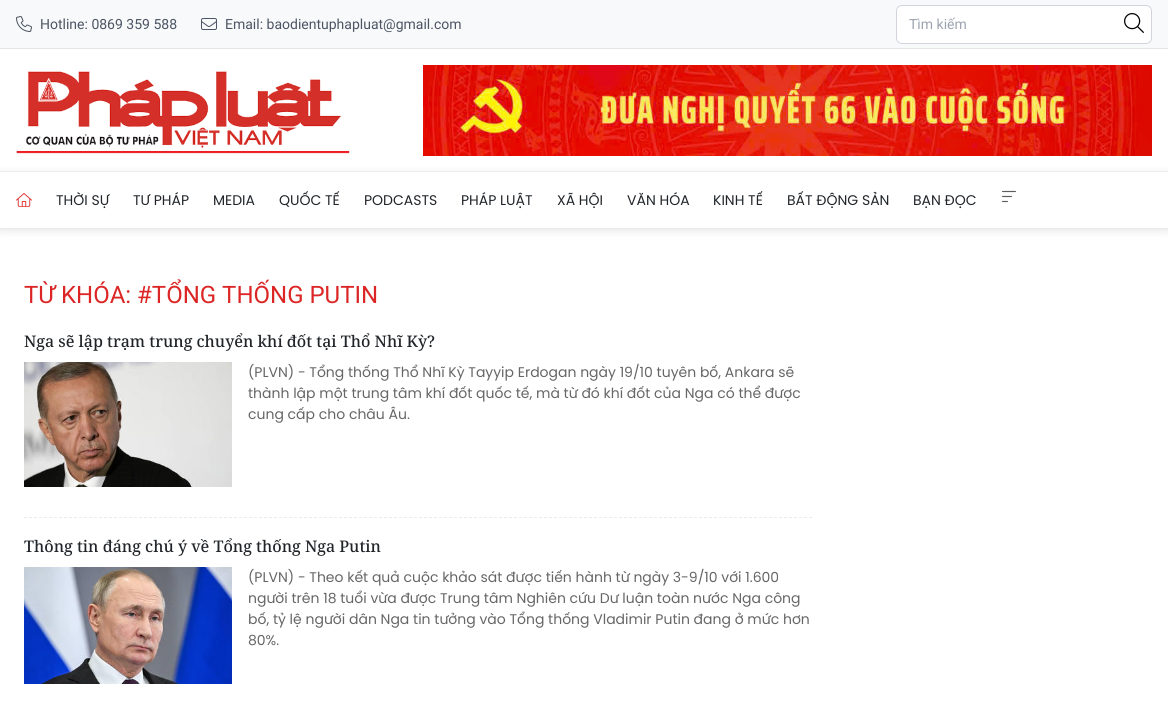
import math
import cairocffi as cairo

surface = cairo.ImageSurface(cairo.FORMAT_RGB24, 1168, 705)
cr = cairo.Context(surface)
options = cairo.FontOptions()
options.set_hint_metrics(cairo.HINT_METRICS_OFF)
options.set_hint_style(cairo.HINT_STYLE_NONE)
cr.set_font_options(options)
cr.set_miter_limit(4)


def use_color(code):
    cr.set_source_rgb(*(v / 255 for v in bytes.fromhex(code[-6:])))


def round_rect(x, y, w, h, r):
    cr.new_sub_path()
    for i, (u, v) in enumerate([(x + w - r, y + h - r), (x + r, y + h - r), (x + r, y + r), (x + w - r, y + r)]):
        cr.arc(u, v, r, i * math.pi / 2, (i + 1) * math.pi / 2)
    cr.close_path()


def shadow(x, y, w, h, r, blur, alpha):
    cr.push_group_with_content(cairo.CONTENT_ALPHA)
    cr.set_operator(cairo.OPERATOR_SOURCE)
    for i in range(15, -16, -2):
        e = blur * i / 6
        if min(w, h) + 2 * e > 0:
            cr.set_source_rgba(0, 0, 0, alpha * math.erfc((i - 1) / 8.5) / 2)
            round_rect(x - e, y - e, w + 2 * e, h + 2 * e, max(0, min(r + e + blur * .6, min(w, h) / 2 + e)))
            cr.fill()
    cr.mask(cr.pop_group())


def picture(path, x, y, w, h):
    cr.save()
    cr.set_source_surface(cairo.ImageSurface.create_from_png(path), x, y)
    cr.rectangle(x, y, w, h)
    cr.fill()
    cr.restore()


use_color("#ffffff")
cr.paint()
use_color("#f8f9fa")
cr.rectangle(0, 0, 1168, 48)
cr.fill()
use_color("#e5e5e5")
cr.rectangle(0, 48, 1168, 1)
cr.fill()
picture("img1.png", 16, 16, 16, 16)
cr.select_font_face("Roboto")
cr.set_font_size(14)
use_color("#4b5563")
cr.move_to(40, 29)
cr.show_text("Hotline: 0869 359 588")
picture("img2.png", 201, 18, 16, 12)
cr.move_to(225, 29)
cr.show_text("Email: baodientuphapluat@gmail.com")
use_color("#ffffff")
round_rect(896.5, 5.5, 255, 38, 5.5)
cr.fill_preserve()
use_color("#d1d5db")
cr.set_line_width(1)
cr.stroke()
use_color("#9ca3af")
cr.move_to(909, 29)
cr.show_text("Tìm kiếm")
picture("img3.png", 1124, 13, 20, 20)
picture("img4.png", 16, 71, 334, 83)
picture("img5.png", 423, 65, 729, 91)
cr.save()
cr.set_fill_rule(cairo.FILL_RULE_EVEN_ODD)
cr.new_path()
cr.move_to(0, 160)
cr.line_to(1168, 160)
cr.line_to(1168, 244)
cr.line_to(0, 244)
cr.close_path()
cr.move_to(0, 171)
cr.line_to(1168, 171)
cr.line_to(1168, 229)
cr.line_to(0, 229)
cr.close_path()
cr.clip()
use_color("#000000")
shadow(0, 173, 1168, 58, 0, 4, 0.1)
cr.restore()
use_color("#e9ecef")
cr.rectangle(0, 171, 1168, 1)
cr.fill()
cr.rectangle(0, 228, 1168, 1)
cr.fill()
picture("img6.png", 16, 193, 16, 14)
cr.select_font_face("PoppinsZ")
use_color("#212529")
cr.move_to(56, 205)
cr.show_text("THỜI SỰ")
cr.move_to(133, 205)
cr.show_text("TƯ PHÁP")
cr.move_to(213, 205)
cr.show_text("MEDIA")
cr.move_to(279, 205)
cr.show_text("QUỐC TẾ")
cr.move_to(364, 205)
cr.show_text("PODCASTS")
cr.move_to(461, 205)
cr.show_text("PHÁP LUẬT")
cr.move_to(557, 205)
cr.show_text("XÃ HỘI")
cr.move_to(627, 205)
cr.show_text("VĂN HÓA")
cr.move_to(713, 205)
cr.show_text("KINH TẾ")
cr.move_to(787, 205)
cr.show_text("BẤT ĐỘNG SẢN")
cr.move_to(913, 205)
cr.show_text("BẠN ĐỌC")
picture("img7.png", 1002, 190, 14, 13)
cr.select_font_face("Roboto")
cr.set_font_size(24)
use_color("#dc2626")
cr.move_to(24, 303)
cr.show_text("TỪ KHÓA: #TỔNG THỐNG PUTIN")
cr.select_font_face("Noto Serif Medium")
cr.set_font_size(16)
use_color("#212529")
cr.move_to(24, 347)
cr.show_text("Nga sẽ lập trạm trung chuyển khí đốt tại Thổ Nhĩ Kỳ?")
picture("img8.png", 24, 362, 208, 125)
cr.select_font_face("PoppinsZ")
cr.set_font_size(14)
use_color("#666666")
cr.move_to(248, 377)
cr.show_text("(PLVN) - Tổng thống Thổ Nhĩ Kỳ Tayyip Erdogan ngày 19/10 tuyên bố, Ankara sẽ")
cr.move_to(248, 398)
cr.show_text("thành lập một trung tâm khí đốt quốc tế, mà từ đó khí đốt của Nga có thể được")
cr.move_to(248, 419)
cr.show_text("cung cấp cho châu Âu.")
cr.new_path()
cr.move_to(24, 517.5)
cr.line_to(812, 517.5)
use_color("#e9ecef")
cr.set_dash([3, 2])
cr.stroke()
cr.select_font_face("Noto Serif Medium")
cr.set_font_size(16)
use_color("#212529")
cr.move_to(24, 552)
cr.show_text("Thông tin đáng chú ý về Tổng thống Nga Putin")
picture("img9.png", 24, 567, 208, 117)
cr.select_font_face("PoppinsZ")
cr.set_font_size(14)
use_color("#666666")
cr.move_to(248, 582)
cr.show_text("(PLVN) - Theo kết quả cuộc khảo sát được tiến hành từ ngày 3-9/10 với 1.600")
cr.move_to(248, 603)
cr.show_text("người trên 18 tuổi vừa được Trung tâm Nghiên cứu Dư luận toàn nước Nga công")
cr.move_to(248, 624)
cr.show_text("bố, tỷ lệ người dân Nga tin tưởng vào Tổng thống Vladimir Putin đang ở mức hơn")
cr.move_to(248, 645)
cr.show_text("80%.")
surface.write_to_png("result.png")
